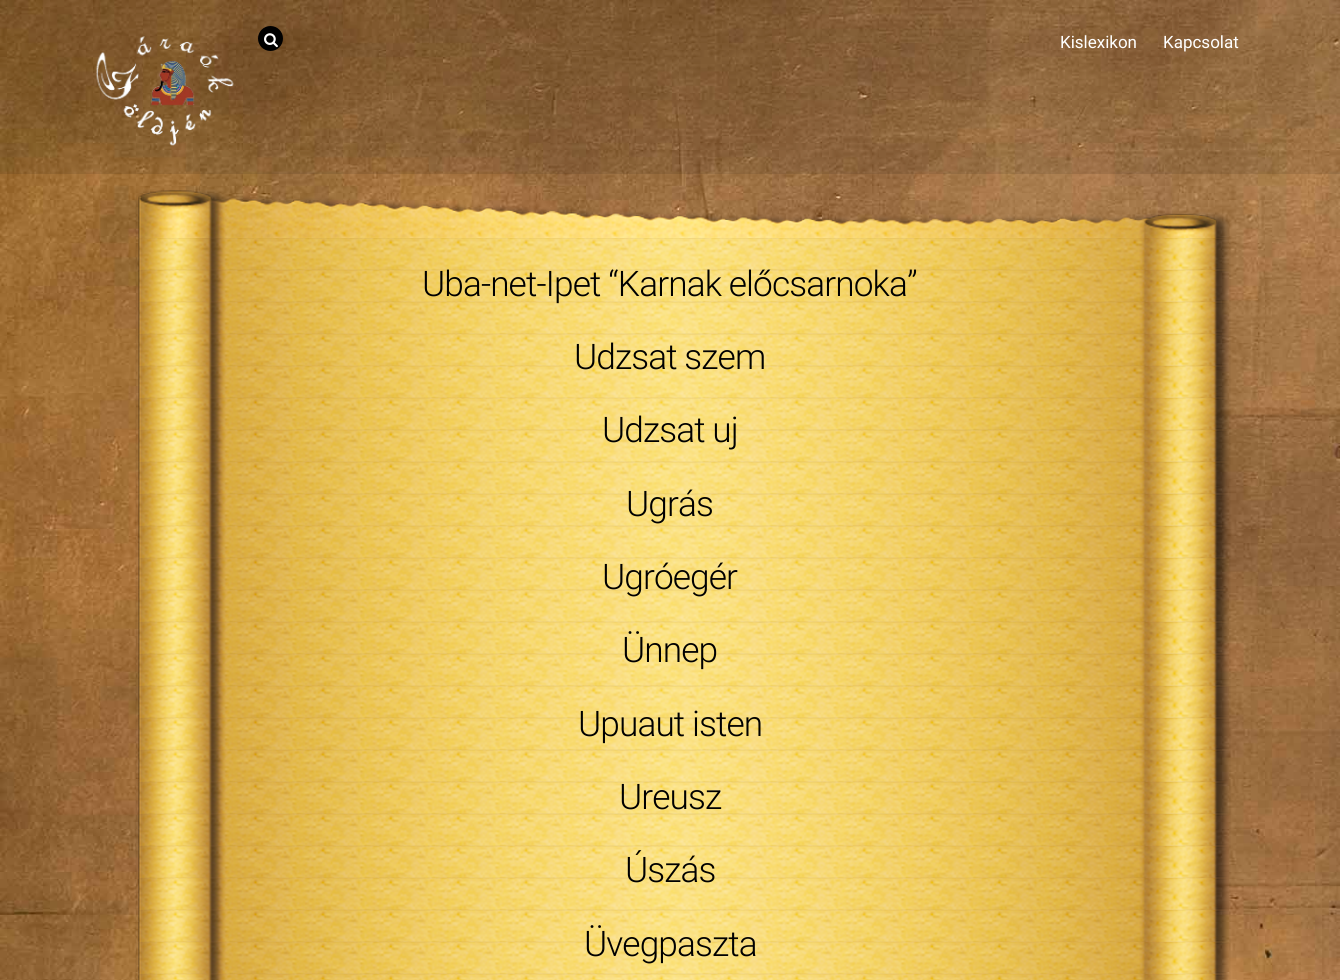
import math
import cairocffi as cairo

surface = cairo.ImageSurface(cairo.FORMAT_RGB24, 1340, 980)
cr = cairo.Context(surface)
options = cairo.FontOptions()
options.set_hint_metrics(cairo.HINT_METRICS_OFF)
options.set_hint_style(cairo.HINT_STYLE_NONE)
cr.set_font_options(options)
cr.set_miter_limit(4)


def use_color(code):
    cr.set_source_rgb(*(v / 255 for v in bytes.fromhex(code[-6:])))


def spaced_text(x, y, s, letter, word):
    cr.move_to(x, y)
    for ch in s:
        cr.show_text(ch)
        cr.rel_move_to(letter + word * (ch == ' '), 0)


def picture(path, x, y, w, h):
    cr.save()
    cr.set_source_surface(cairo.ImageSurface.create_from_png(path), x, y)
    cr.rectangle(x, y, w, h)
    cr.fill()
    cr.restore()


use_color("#ffffff")
cr.paint()
picture("img1.png", 0, 0, 1340, 980)
cr.set_source_rgba(0, 0, 0, 0.1)
cr.rectangle(0, 0, 1340, 174)
cr.fill()
picture("img2.png", 96, 36, 138, 110)
use_color("#000000")
cr.arc(270.5, 38.5, 12.5, 0, 2 * math.pi)
cr.fill()
picture("img3.png", 264, 33, 14, 15)
cr.select_font_face("Roboto")
cr.set_font_size(17)
use_color("#ffffff")
cr.move_to(1060, 48)
cr.show_text("Kislexikon")
cr.move_to(1163, 48)
cr.show_text("Kapcsolat")
picture("img4.png", 135, 189, 1095, 49)
picture("img5.png", 135, 238, 1096, 742)
cr.select_font_face("Roboto Light")
cr.set_font_size(35.25)
use_color("#000000")
spaced_text(422, 296, "Uba-net-Ipet “Karnak előcsarnoka”", -0.9, 0)
spaced_text(574, 369, "Udzsat szem", -0.9, 0)
spaced_text(602, 442, "Udzsat uj", -0.9, 0)
spaced_text(626, 516, "Ugrás", -0.9, 0)
spaced_text(602, 589, "Ugróegér", -0.9, 0)
spaced_text(622, 662, "Ünnep", -0.9, 0)
spaced_text(578, 736, "Upuaut isten", -0.9, 0)
spaced_text(619, 809, "Ureusz", -0.9, 0)
spaced_text(625, 882, "Úszás", -0.9, 0)
spaced_text(584, 956, "Üvegpaszta", -0.9, 0)
surface.write_to_png("result.png")
